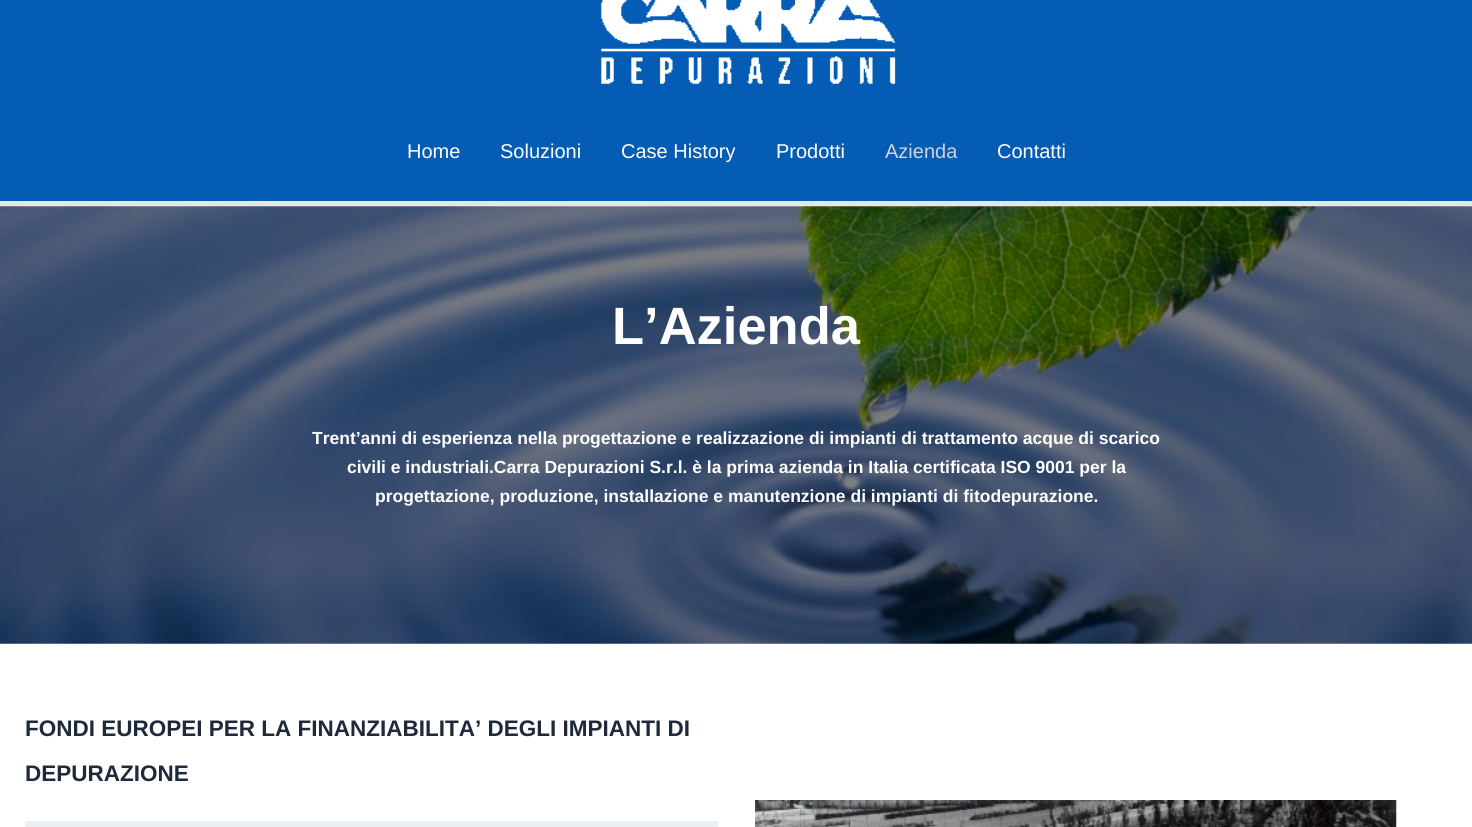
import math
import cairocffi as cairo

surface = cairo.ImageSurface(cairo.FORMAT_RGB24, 1472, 827)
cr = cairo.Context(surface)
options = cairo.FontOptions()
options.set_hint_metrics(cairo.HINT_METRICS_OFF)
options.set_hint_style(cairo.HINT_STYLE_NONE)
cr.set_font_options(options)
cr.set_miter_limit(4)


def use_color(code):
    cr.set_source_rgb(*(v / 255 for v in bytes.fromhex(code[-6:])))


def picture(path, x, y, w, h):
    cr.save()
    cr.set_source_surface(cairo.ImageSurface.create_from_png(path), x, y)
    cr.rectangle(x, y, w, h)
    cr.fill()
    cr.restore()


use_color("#ffffff")
cr.paint()
use_color("#045cb4")
cr.rectangle(0, 0, 1472, 201)
cr.fill()
picture("img1.png", 601, 0, 295, 84)
use_color("#e2e8f0")
cr.rectangle(0, 201, 1472, 5)
cr.fill()
cr.select_font_face("Liberation Sans")
cr.set_font_size(20)
use_color("#ffffff")
cr.move_to(407, 158)
cr.show_text("Home")
cr.move_to(500, 158)
cr.show_text("Soluzioni")
cr.move_to(621, 158)
cr.show_text("Case History")
cr.move_to(776, 158)
cr.show_text("Prodotti")
use_color("#cbd5e1")
cr.move_to(885, 158)
cr.show_text("Azienda")
use_color("#ffffff")
cr.move_to(997, 158)
cr.show_text("Contatti")
picture("img2.png", 0, 206, 1472, 438)
cr.select_font_face("Liberation Sans", cairo.FONT_SLANT_NORMAL, cairo.FONT_WEIGHT_BOLD)
cr.set_font_size(52.5)
cr.move_to(612, 344)
cr.show_text("L’Azienda")
cr.set_font_size(17.5)
cr.move_to(312, 444)
cr.show_text("Trent’anni di esperienza nella progettazione e realizzazione di impianti di trattamento acque di scarico")
cr.move_to(347, 473)
cr.show_text("civili e industriali.Carra Depurazioni S.r.l. è la prima azienda in Italia certificata ISO 9001 per la")
cr.move_to(375, 502)
cr.show_text("progettazione, produzione, installazione e manutenzione di impianti di fitodepurazione.")
cr.set_font_size(22.5)
use_color("#1e293b")
cr.move_to(25, 736)
cr.show_text("FONDI EUROPEI PER LA FINANZIABILITA’ DEGLI IMPIANTI DI")
cr.move_to(25, 781)
cr.show_text("DEPURAZIONE")
use_color("#eceff3")
cr.rectangle(25, 821, 693, 6)
cr.fill()
picture("img3.png", 755, 800, 642, 27)
surface.write_to_png("result.png")
